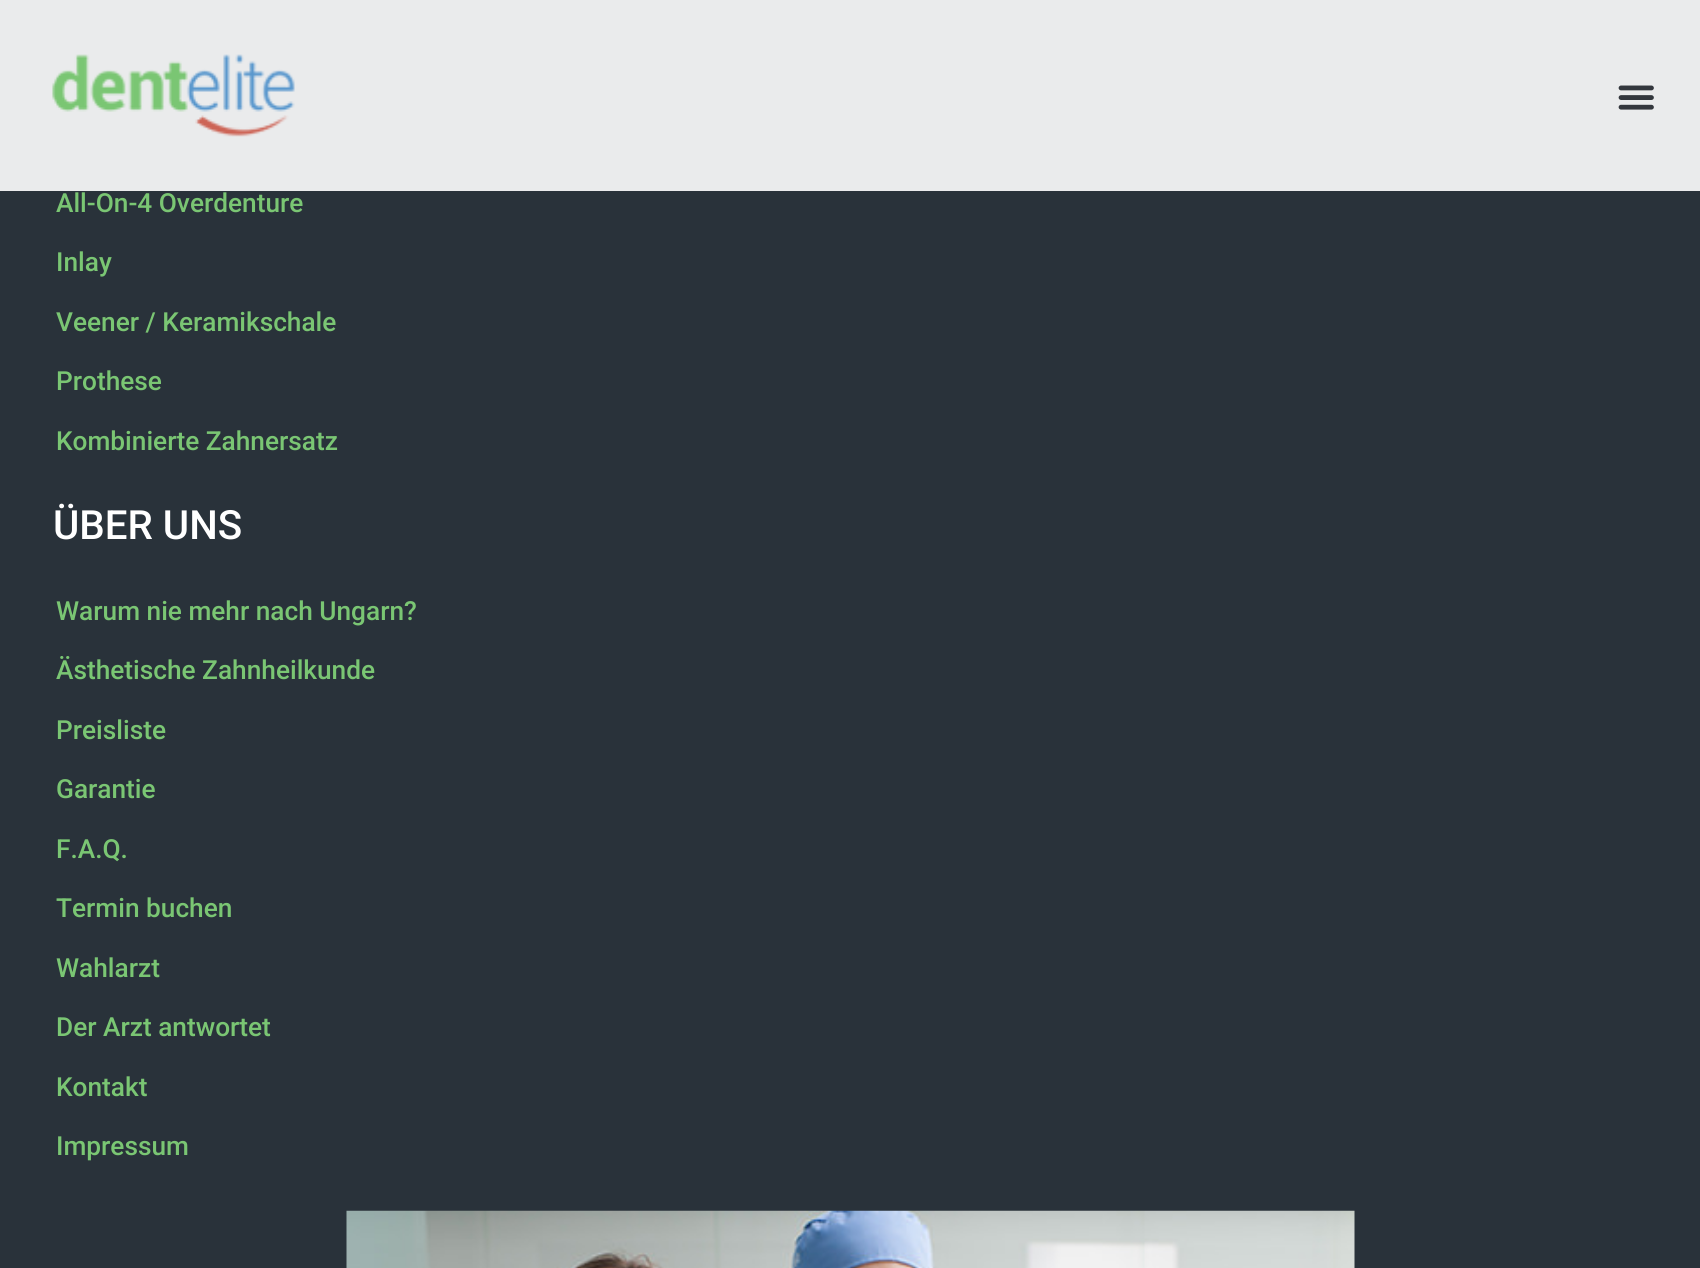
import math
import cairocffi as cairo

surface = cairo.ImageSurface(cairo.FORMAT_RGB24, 1700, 1268)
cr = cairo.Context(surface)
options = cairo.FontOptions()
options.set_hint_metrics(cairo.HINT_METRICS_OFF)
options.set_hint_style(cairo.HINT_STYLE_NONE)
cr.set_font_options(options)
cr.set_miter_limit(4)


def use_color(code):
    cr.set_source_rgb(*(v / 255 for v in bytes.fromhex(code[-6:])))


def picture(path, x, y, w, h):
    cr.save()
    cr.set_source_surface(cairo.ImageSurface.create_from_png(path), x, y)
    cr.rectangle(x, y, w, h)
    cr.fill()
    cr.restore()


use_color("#29323a")
cr.paint()
cr.set_source_rgba(1, 1, 1, 0.9)
cr.rectangle(0, 0, 1700, 191)
cr.fill()
picture("img1.png", 52, 54, 243, 83)
picture("img2.png", 1618, 85, 36, 25)
cr.select_font_face("Roboto Medium")
cr.set_font_size(26.25)
use_color("#7ac673")
cr.move_to(56, 212)
cr.show_text("All-On-4 Overdenture")
cr.move_to(56, 271)
cr.show_text("Inlay")
cr.move_to(56, 331)
cr.show_text("Veener / Keramikschale")
cr.move_to(56, 390)
cr.show_text("Prothese")
cr.move_to(56, 450)
cr.show_text("Kombinierte Zahnersatz")
cr.set_font_size(40.25)
use_color("#ffffff")
cr.move_to(53, 539)
cr.show_text("ÜBER UNS")
cr.set_font_size(26.25)
use_color("#7ac673")
cr.move_to(56, 620)
cr.show_text("Warum nie mehr nach Ungarn?")
cr.move_to(56, 679)
cr.show_text("Ästhetische Zahnheilkunde")
cr.move_to(56, 739)
cr.show_text("Preisliste")
cr.move_to(56, 798)
cr.show_text("Garantie")
cr.move_to(56, 858)
cr.show_text("F.A.Q.")
cr.move_to(56, 917)
cr.show_text("Termin buchen")
cr.move_to(56, 977)
cr.show_text("Wahlarzt")
cr.move_to(56, 1036)
cr.show_text("Der Arzt antwortet")
cr.move_to(56, 1096)
cr.show_text("Kontakt")
cr.move_to(56, 1155)
cr.show_text("Impressum")
picture("img3.png", 346, 1210, 1009, 58)
surface.write_to_png("result.png")
